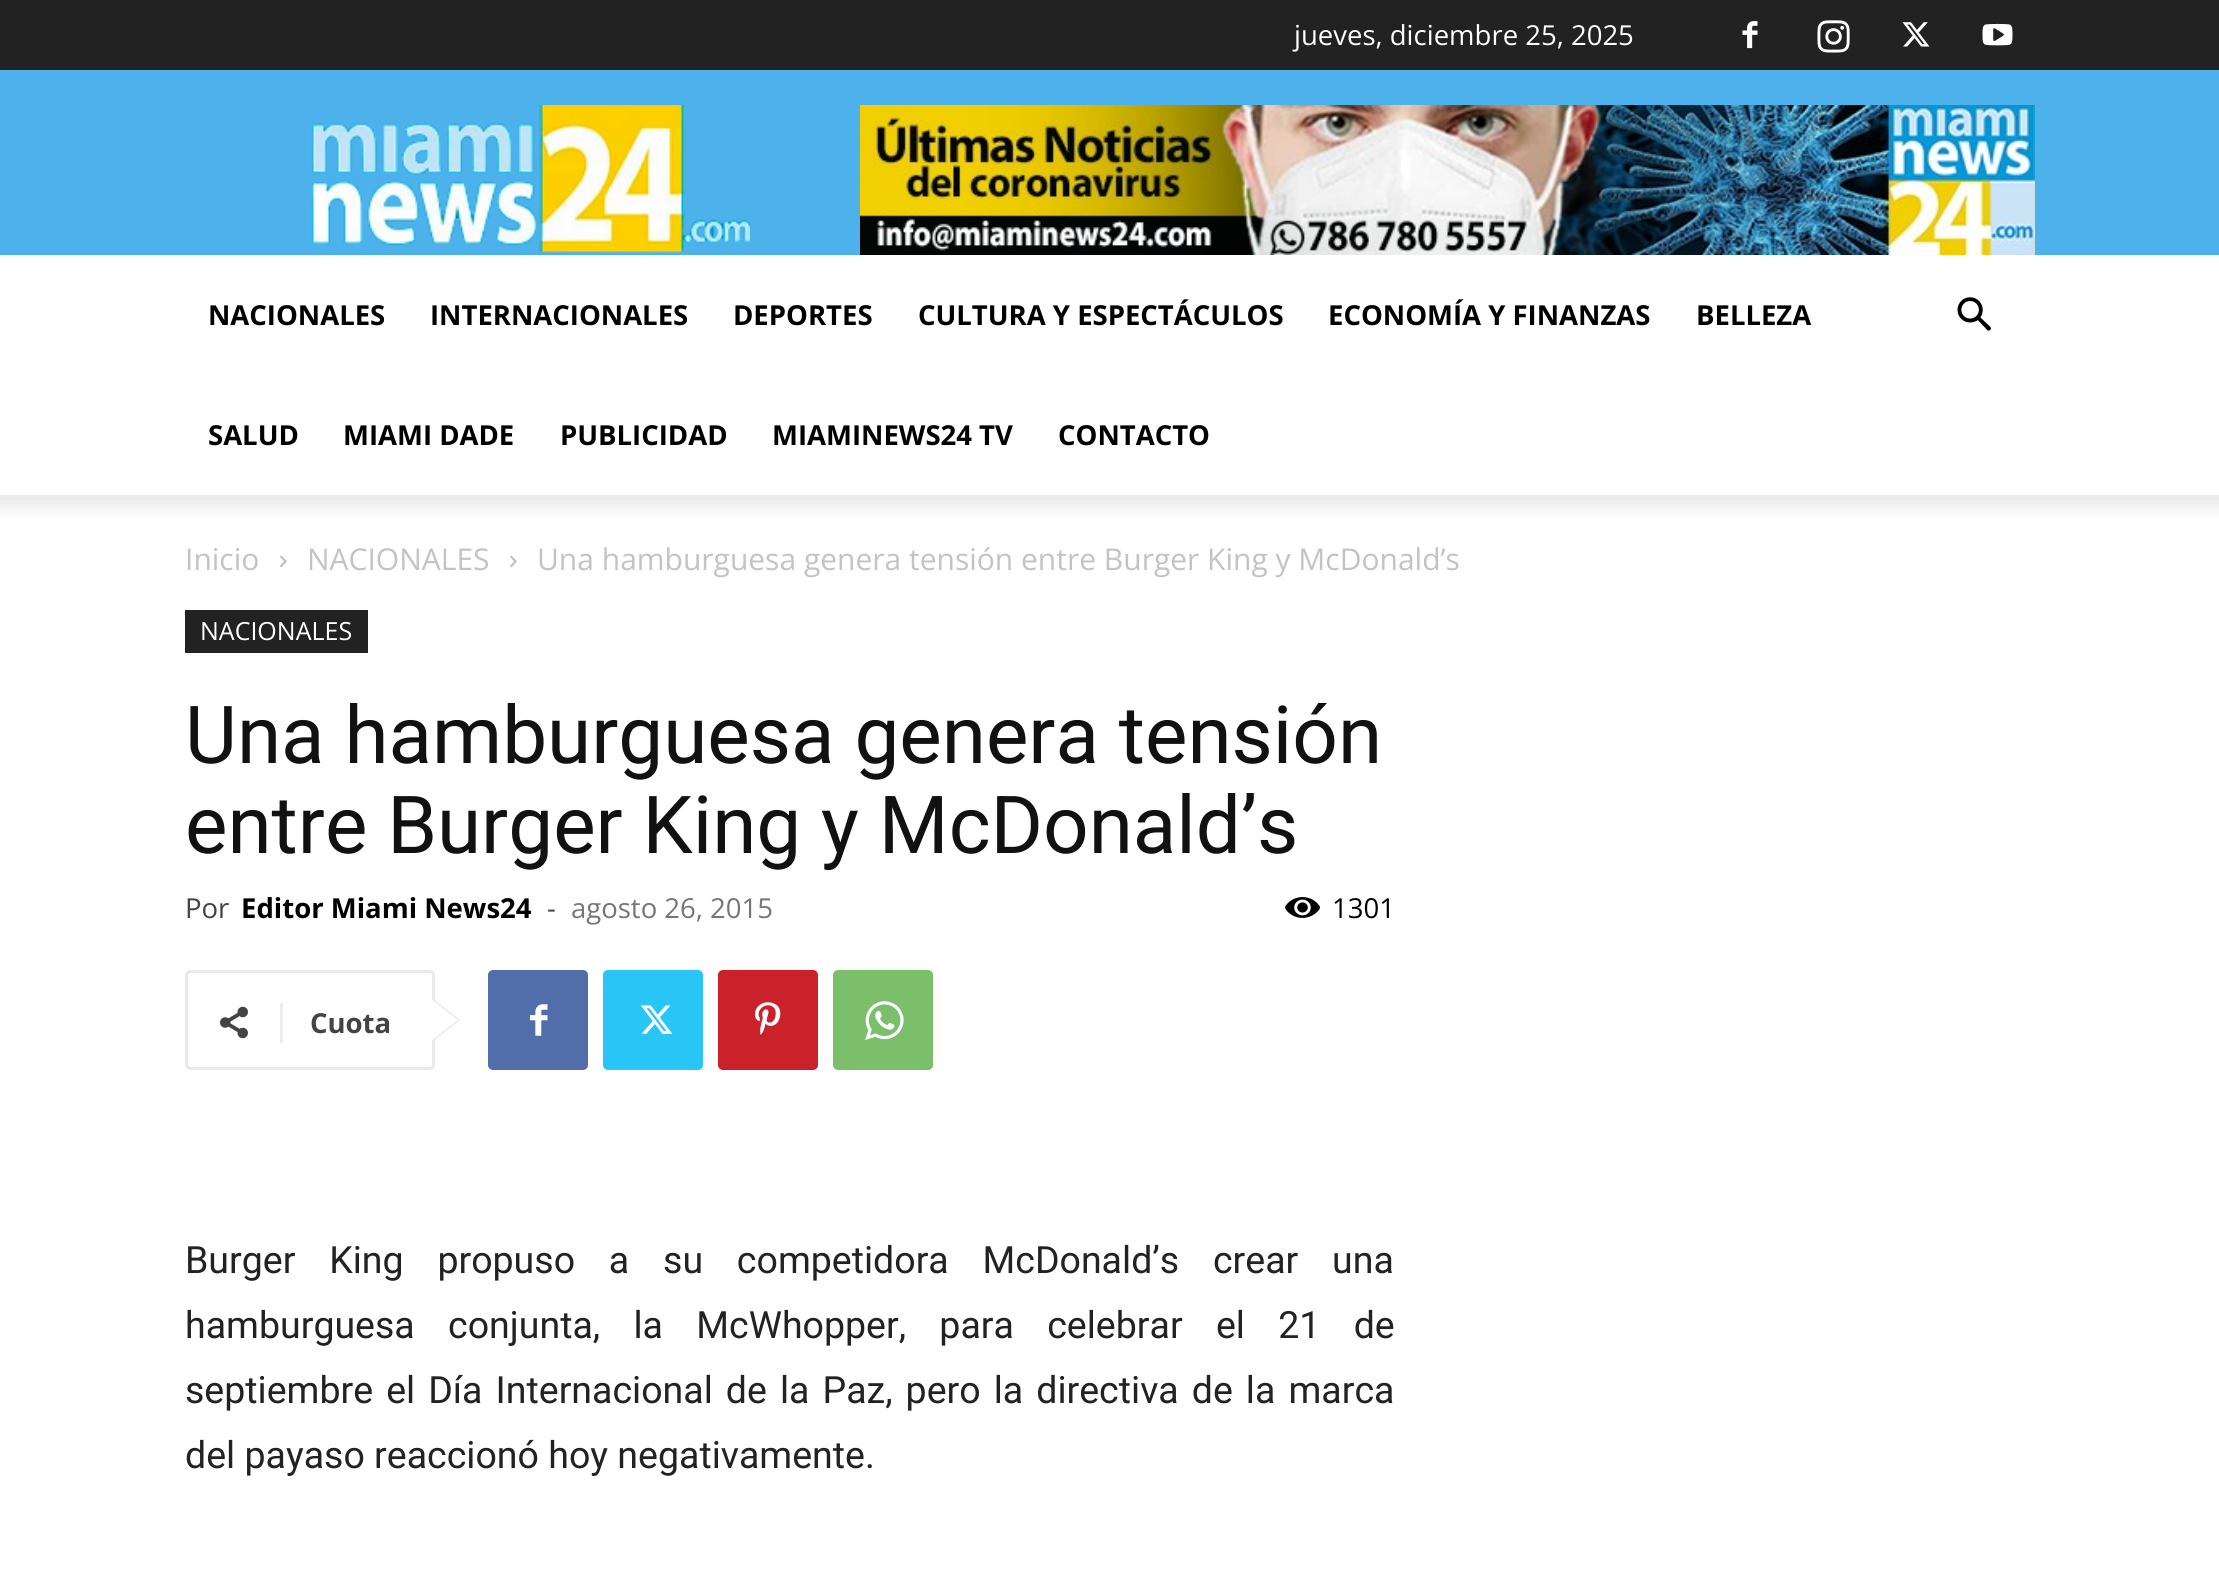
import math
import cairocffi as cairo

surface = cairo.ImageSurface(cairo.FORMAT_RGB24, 2219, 1588)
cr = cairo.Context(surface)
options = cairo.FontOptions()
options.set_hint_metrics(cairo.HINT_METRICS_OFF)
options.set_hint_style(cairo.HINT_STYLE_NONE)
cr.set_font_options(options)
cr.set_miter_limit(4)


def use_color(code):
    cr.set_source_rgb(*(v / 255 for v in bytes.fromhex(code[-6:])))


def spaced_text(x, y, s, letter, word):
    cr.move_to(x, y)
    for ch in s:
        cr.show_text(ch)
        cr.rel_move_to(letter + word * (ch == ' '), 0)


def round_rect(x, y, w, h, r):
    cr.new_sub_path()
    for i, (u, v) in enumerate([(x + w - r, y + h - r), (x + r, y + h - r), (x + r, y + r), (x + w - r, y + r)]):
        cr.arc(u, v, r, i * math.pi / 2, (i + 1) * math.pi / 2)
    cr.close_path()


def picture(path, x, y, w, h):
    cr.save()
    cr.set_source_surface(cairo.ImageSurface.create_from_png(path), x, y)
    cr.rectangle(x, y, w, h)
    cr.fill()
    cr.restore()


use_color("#ffffff")
cr.paint()
use_color("#222222")
cr.rectangle(0, 0, 2219, 70)
cr.fill()
cr.select_font_face("Open Sans")
cr.set_font_size(27.5)
use_color("#ffffff")
cr.move_to(1294, 45)
cr.show_text("jueves, diciembre 25, 2025")
picture("img1.png", 1742, 21, 16, 28)
picture("img2.png", 1817, 20, 33, 33)
picture("img3.png", 1902, 22, 28, 25)
picture("img4.png", 1982, 23, 31, 23)
use_color("#4db2ec")
cr.rectangle(0, 70, 2219, 185)
cr.fill()
picture("img5.png", 311, 105, 439, 148)
picture("img6.png", 860, 105, 1175, 150)
cr.select_font_face("Open Sans", cairo.FONT_SLANT_NORMAL, cairo.FONT_WEIGHT_BOLD)
use_color("#000000")
cr.move_to(208, 325)
cr.show_text("NACIONALES")
cr.move_to(430, 325)
cr.show_text("INTERNACIONALES")
cr.move_to(733, 325)
cr.show_text("DEPORTES")
cr.move_to(918, 325)
cr.show_text("CULTURA Y ESPECTÁCULOS")
cr.move_to(1328, 325)
cr.show_text("ECONOMÍA Y FINANZAS")
cr.move_to(1696, 325)
cr.show_text("BELLEZA")
cr.move_to(208, 445)
cr.show_text("SALUD")
cr.move_to(343, 445)
cr.show_text("MIAMI DADE")
cr.move_to(560, 445)
cr.show_text("PUBLICIDAD")
cr.move_to(772, 445)
cr.show_text("MIAMINEWS24 TV")
cr.move_to(1058, 445)
cr.show_text("CONTACTO")
picture("img7.png", 1957, 297, 34, 34)
picture("img8.png", 0, 495, 2219, 21)
cr.select_font_face("Open Sans")
cr.set_font_size(30)
use_color("#c3c3c3")
cr.move_to(185, 570)
cr.show_text("Inicio")
picture("img9.png", 280, 555, 7, 13)
cr.move_to(307, 570)
cr.show_text("NACIONALES")
picture("img9.png", 510, 555, 7, 13)
cr.move_to(537, 570)
cr.show_text("Una hamburguesa genera tensión entre Burger King y McDonald’s")
use_color("#222222")
cr.rectangle(185, 610, 183, 43)
cr.fill()
cr.set_font_size(25)
use_color("#ffffff")
cr.move_to(200, 640)
cr.show_text("NACIONALES")
cr.select_font_face("Roboto")
cr.set_font_size(80)
use_color("#111111")
cr.move_to(185, 763)
cr.show_text("Una hamburguesa genera tensión")
cr.move_to(185, 853)
cr.show_text("entre Burger King y McDonald’s")
cr.select_font_face("Open Sans")
cr.set_font_size(27.5)
use_color("#444444")
cr.move_to(185, 918)
cr.show_text("Por")
cr.select_font_face("Open Sans", cairo.FONT_SLANT_NORMAL, cairo.FONT_WEIGHT_BOLD)
use_color("#000000")
cr.move_to(241, 918)
cr.show_text("Editor Miami News24")
cr.select_font_face("Open Sans")
use_color("#444444")
cr.move_to(547, 918)
cr.show_text("-")
use_color("#767676")
cr.move_to(571, 918)
cr.show_text("agosto 26, 2015")
picture("img10.png", 1285, 897, 35, 21)
use_color("#000000")
cr.move_to(1332, 918)
cr.show_text("1301")
round_rect(186.5, 971.5, 247, 97, 3.5)
use_color("#e9e9e9")
cr.set_line_width(3)
cr.stroke()
cr.new_path()
cr.move_to(432, 1042)
cr.line_to(432, 998)
cr.line_to(460, 1020)
cr.close_path()
cr.fill()
picture("img11.png", 220, 1006, 28, 33)
use_color("#ebebeb")
cr.rectangle(280, 1003, 3, 40)
cr.fill()
cr.select_font_face("Open Sans", cairo.FONT_SLANT_NORMAL, cairo.FONT_WEIGHT_BOLD)
use_color("#444444")
cr.move_to(310, 1033)
cr.show_text("Cuota")
use_color("#ffffff")
cr.new_path()
cr.move_to(432, 1040)
cr.line_to(432, 1000)
cr.line_to(458, 1020)
cr.close_path()
cr.fill()
use_color("#516eab")
round_rect(488, 970, 100, 100, 5)
cr.fill()
picture("img12.png", 530, 1004, 18, 32)
use_color("#29c5f6")
round_rect(603, 970, 100, 100, 5)
cr.fill()
picture("img13.png", 640, 1005, 33, 29)
use_color("#ca212a")
round_rect(718, 970, 100, 100, 5)
cr.fill()
picture("img14.png", 755, 1002, 26, 33)
use_color("#7bbf6a")
round_rect(833, 970, 100, 100, 5)
cr.fill()
picture("img15.png", 865, 1001, 39, 39)
cr.select_font_face("Roboto")
cr.set_font_size(37.5)
use_color("#222222")
spaced_text(185, 1273, "Burger King propuso a su competidora McDonald’s crear una", 0, 24.5)
spaced_text(185, 1338, "hamburguesa conjunta, la McWhopper, para celebrar el 21 de", 0, 24)
spaced_text(185, 1403, "septiembre el Día Internacional de la Paz, pero la directiva de la marca", 0, 3.75)
cr.move_to(185, 1468)
cr.show_text("del payaso reaccionó hoy negativamente.")
surface.write_to_png("result.png")
